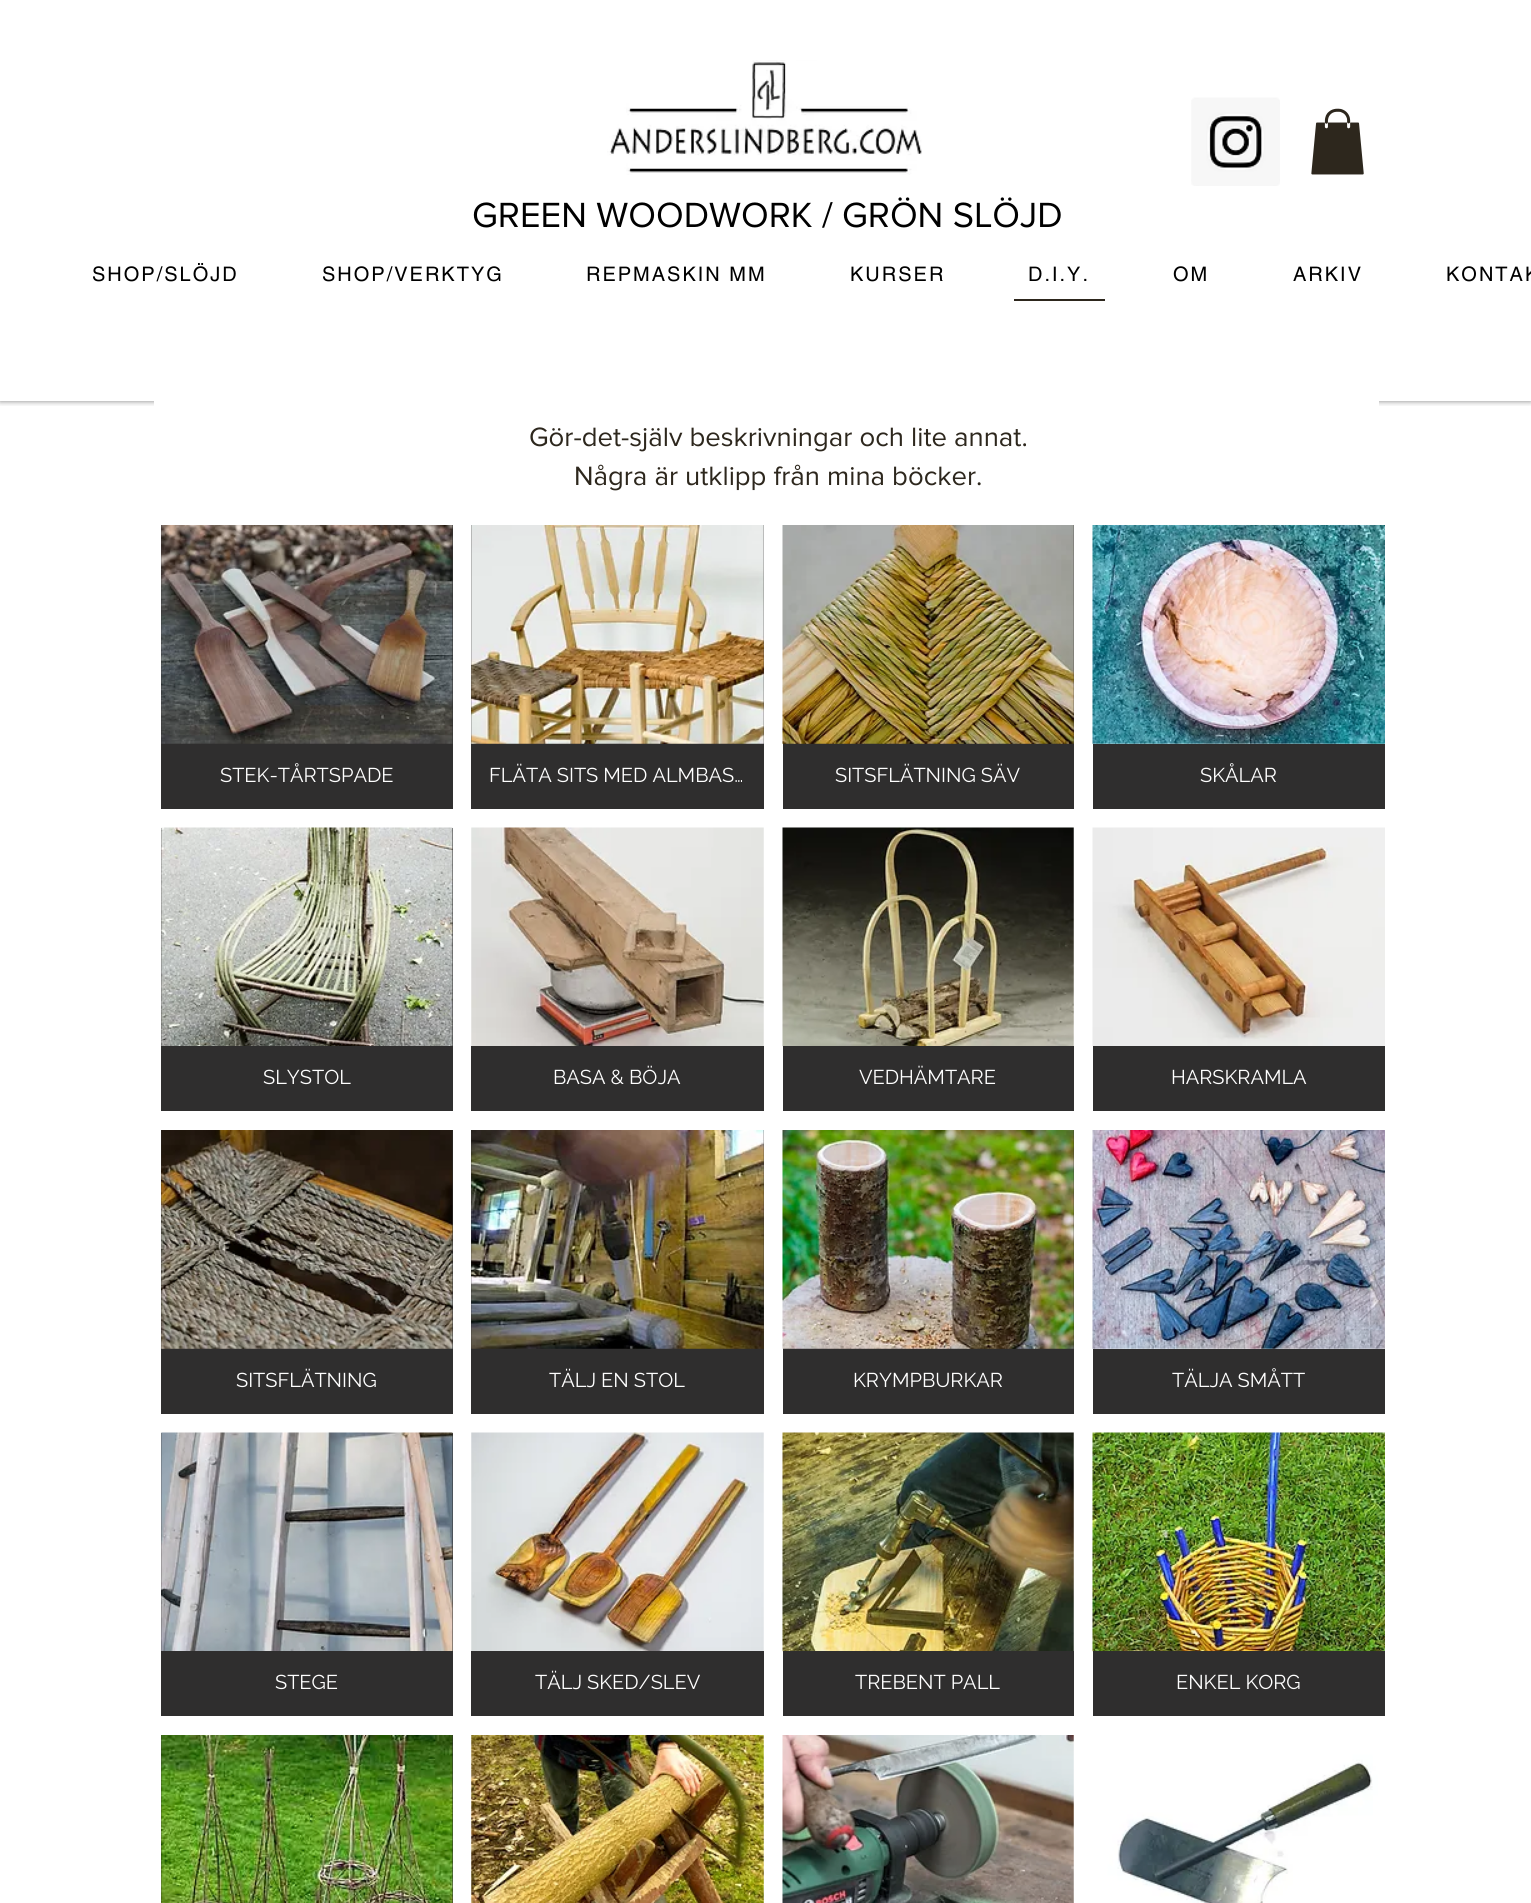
import math
import cairocffi as cairo

surface = cairo.ImageSurface(cairo.FORMAT_RGB24, 1531, 1903)
cr = cairo.Context(surface)
options = cairo.FontOptions()
options.set_hint_metrics(cairo.HINT_METRICS_OFF)
options.set_hint_style(cairo.HINT_STYLE_NONE)
cr.set_font_options(options)
cr.set_miter_limit(4)


def use_color(code):
    cr.set_source_rgb(*(v / 255 for v in bytes.fromhex(code[-6:])))


def spaced_text(x, y, s, letter, word):
    cr.move_to(x, y)
    for ch in s:
        cr.show_text(ch)
        cr.rel_move_to(letter + word * (ch == ' '), 0)


def round_rect(x, y, w, h, r):
    cr.new_sub_path()
    for i, (u, v) in enumerate([(x + w - r, y + h - r), (x + r, y + h - r), (x + r, y + r), (x + w - r, y + r)]):
        cr.arc(u, v, r, i * math.pi / 2, (i + 1) * math.pi / 2)
    cr.close_path()


def shadow(x, y, w, h, r, blur, alpha):
    cr.push_group_with_content(cairo.CONTENT_ALPHA)
    cr.set_operator(cairo.OPERATOR_SOURCE)
    for i in range(15, -16, -2):
        e = blur * i / 6
        if min(w, h) + 2 * e > 0:
            cr.set_source_rgba(0, 0, 0, alpha * math.erfc((i - 1) / 8.5) / 2)
            round_rect(x - e, y - e, w + 2 * e, h + 2 * e, max(0, min(r + e + blur * .6, min(w, h) / 2 + e)))
            cr.fill()
    cr.mask(cr.pop_group())


def picture(path, x, y, w, h):
    cr.save()
    cr.set_source_surface(cairo.ImageSurface.create_from_png(path), x, y)
    cr.rectangle(x, y, w, h)
    cr.fill()
    cr.restore()


use_color("#ffffff")
cr.paint()
cr.save()
cr.rectangle(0, 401, 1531, 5)
cr.clip()
use_color("#000000")
shadow(0, 0, 1531, 401, 0, 3, 0.5)
cr.restore()
picture("img1.png", 607, 60, 315, 115)
picture("img2.png", 1191, 97, 89, 89)
picture("img3.png", 1311, 108, 53, 67)
cr.select_font_face("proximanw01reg")
cr.set_font_size(36.25)
use_color("#000000")
cr.move_to(472, 227)
cr.show_text("GREEN WOODWORK / GRÖN SLÖJD")
cr.select_font_face("helvetica")
cr.set_font_size(20)
spaced_text(92, 281, "SHOP/SLÖJD", 2, 0)
spaced_text(322, 281, "SHOP/VERKTYG", 2, 0)
spaced_text(586, 281, "REPMASKIN MM", 2, 0)
spaced_text(850, 281, "KURSER", 2, 0)
use_color("#2d271d")
cr.rectangle(1014, 299, 91, 2)
cr.fill()
use_color("#000000")
spaced_text(1028, 281, "D.I.Y.", 2, 0)
spaced_text(1173, 281, "OM", 2, 0)
spaced_text(1293, 281, "ARKIV", 2, 0)
spaced_text(1446, 281, "KONTAK", 2, 0)
use_color("#ffffff")
cr.rectangle(154, 401, 1225, 6)
cr.fill()
cr.select_font_face("proximanw01reg")
cr.set_font_size(27.5)
use_color("#2d271d")
cr.move_to(529, 446)
cr.show_text("Gör-det-själv beskrivningar och lite annat.")
cr.move_to(574, 485)
cr.show_text("Några är utklipp från mina böcker.")
use_color("#2f2e2e")
cr.rectangle(161, 525, 292, 284)
cr.fill()
picture("img4.png", 161, 525, 292, 219)
cr.select_font_face("Raleway")
cr.set_font_size(20)
use_color("#ffffff")
cr.move_to(220, 782)
cr.show_text("STEK-TÅRTSPADE")
use_color("#2f2e2e")
cr.rectangle(471, 525, 293, 284)
cr.fill()
picture("img5.png", 471, 525, 293, 219)
use_color("#ffffff")
cr.move_to(489, 782)
cr.show_text("FLÄTA SITS MED ALMBAS…")
use_color("#2f2e2e")
cr.rectangle(783, 525, 291, 284)
cr.fill()
picture("img6.png", 782, 525, 292, 219)
use_color("#ffffff")
cr.move_to(835, 782)
cr.show_text("SITSFLÄTNING SÄV")
picture("img7.png", 1092, 525, 293, 219)
use_color("#2f2e2e")
cr.rectangle(1093, 744, 292, 65)
cr.fill()
use_color("#ffffff")
cr.move_to(1200, 782)
cr.show_text("SKÅLAR")
use_color("#2f2e2e")
cr.rectangle(161, 828, 292, 283)
cr.fill()
picture("img8.png", 161, 827, 292, 219)
use_color("#ffffff")
cr.move_to(263, 1084)
cr.show_text("SLYSTOL")
picture("img9.png", 471, 827, 293, 219)
use_color("#2f2e2e")
cr.rectangle(471, 1046, 293, 65)
cr.fill()
use_color("#ffffff")
cr.move_to(553, 1084)
cr.show_text("BASA & BÖJA")
picture("img10.png", 782, 827, 292, 220)
use_color("#2f2e2e")
cr.rectangle(783, 1046, 291, 65)
cr.fill()
use_color("#ffffff")
cr.move_to(859, 1084)
cr.show_text("VEDHÄMTARE")
picture("img11.png", 1092, 827, 293, 220)
use_color("#2f2e2e")
cr.rectangle(1093, 1046, 292, 65)
cr.fill()
use_color("#ffffff")
cr.move_to(1171, 1084)
cr.show_text("HARSKRAMLA")
use_color("#2f2e2e")
cr.rectangle(161, 1130, 292, 284)
cr.fill()
picture("img12.png", 161, 1130, 292, 219)
use_color("#ffffff")
cr.move_to(236, 1387)
cr.show_text("SITSFLÄTNING")
use_color("#2f2e2e")
cr.rectangle(471, 1130, 293, 284)
cr.fill()
picture("img13.png", 471, 1130, 293, 219)
use_color("#ffffff")
cr.move_to(549, 1387)
cr.show_text("TÄLJ EN STOL")
use_color("#2f2e2e")
cr.rectangle(783, 1130, 291, 284)
cr.fill()
picture("img14.png", 782, 1130, 292, 219)
use_color("#ffffff")
cr.move_to(853, 1387)
cr.show_text("KRYMPBURKAR")
picture("img15.png", 1092, 1130, 293, 219)
use_color("#2f2e2e")
cr.rectangle(1093, 1349, 292, 65)
cr.fill()
use_color("#ffffff")
cr.move_to(1172, 1387)
cr.show_text("TÄLJA SMÅTT")
use_color("#2f2e2e")
cr.rectangle(161, 1433, 292, 283)
cr.fill()
picture("img16.png", 161, 1432, 292, 219)
use_color("#ffffff")
cr.move_to(275, 1689)
cr.show_text("STEGE")
picture("img17.png", 471, 1432, 293, 219)
use_color("#2f2e2e")
cr.rectangle(471, 1651, 293, 65)
cr.fill()
use_color("#ffffff")
cr.move_to(535, 1689)
cr.show_text("TÄLJ SKED/SLEV")
picture("img18.png", 782, 1432, 292, 220)
use_color("#2f2e2e")
cr.rectangle(783, 1651, 291, 65)
cr.fill()
use_color("#ffffff")
cr.move_to(855, 1689)
cr.show_text("TREBENT PALL")
picture("img19.png", 1092, 1432, 293, 220)
use_color("#2f2e2e")
cr.rectangle(1093, 1651, 292, 65)
cr.fill()
use_color("#ffffff")
cr.move_to(1176, 1689)
cr.show_text("ENKEL KORG")
use_color("#2f2e2e")
cr.rectangle(161, 1735, 292, 168)
cr.fill()
picture("img20.png", 161, 1735, 292, 168)
picture("img21.png", 471, 1735, 293, 168)
picture("img22.png", 782, 1735, 292, 168)
picture("img23.png", 1093, 1735, 292, 168)
surface.write_to_png("result.png")
